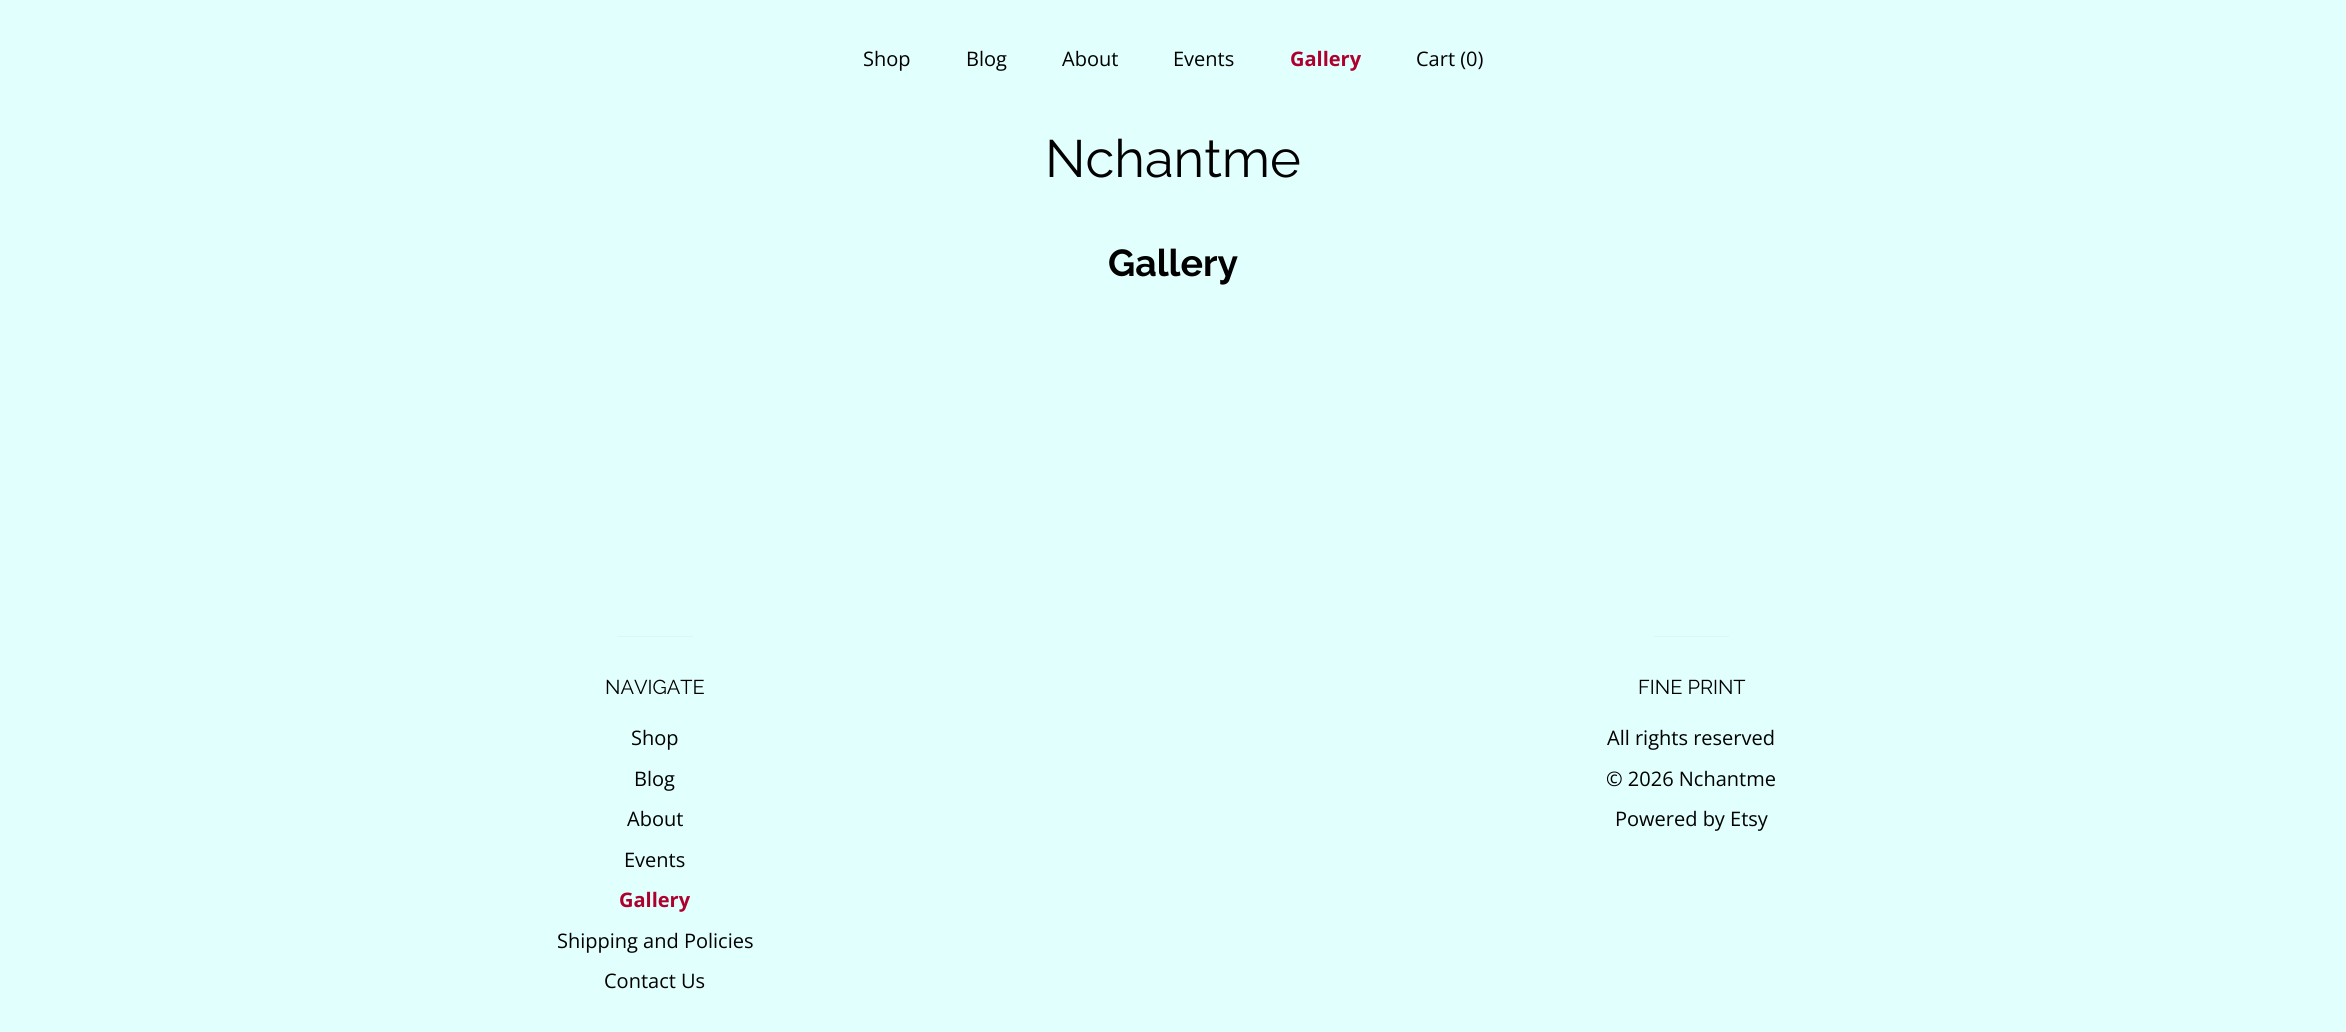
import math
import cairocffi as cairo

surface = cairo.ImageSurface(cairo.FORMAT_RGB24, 2346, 1032)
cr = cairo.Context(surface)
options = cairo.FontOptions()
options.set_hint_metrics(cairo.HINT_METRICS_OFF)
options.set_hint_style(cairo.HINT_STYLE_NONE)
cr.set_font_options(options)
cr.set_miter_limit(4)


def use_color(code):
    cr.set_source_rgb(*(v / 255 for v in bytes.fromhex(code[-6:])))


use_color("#e1fffd")
cr.paint()
cr.select_font_face("Open Sans")
cr.set_font_size(20)
use_color("#000000")
cr.move_to(863, 66)
cr.show_text("Shop")
cr.move_to(966, 66)
cr.show_text("Blog")
cr.move_to(1062, 66)
cr.show_text("About")
cr.move_to(1173, 66)
cr.show_text("Events")
cr.select_font_face("Open Sans", cairo.FONT_SLANT_NORMAL, cairo.FONT_WEIGHT_BOLD)
use_color("#ae002e")
cr.move_to(1290, 66)
cr.show_text("Gallery")
cr.select_font_face("Open Sans")
use_color("#000000")
cr.move_to(1416, 66)
cr.show_text("Cart (0)")
cr.select_font_face("Raleway")
cr.set_font_size(52.5)
cr.move_to(1045, 177)
cr.show_text("Nchantme")
cr.select_font_face("Raleway", cairo.FONT_SLANT_NORMAL, cairo.FONT_WEIGHT_BOLD)
cr.set_font_size(37.5)
cr.move_to(1108, 276)
cr.show_text("Gallery")
use_color("#ddf5f3")
cr.rectangle(618, 636, 75, 1)
cr.fill()
cr.select_font_face("Raleway")
cr.set_font_size(20)
use_color("#000000")
cr.move_to(605, 694)
cr.show_text("NAVIGATE")
cr.select_font_face("Open Sans")
cr.move_to(631, 745)
cr.show_text("Shop")
cr.move_to(634, 786)
cr.show_text("Blog")
cr.move_to(627, 826)
cr.show_text("About")
cr.move_to(624, 867)
cr.show_text("Events")
cr.select_font_face("Open Sans", cairo.FONT_SLANT_NORMAL, cairo.FONT_WEIGHT_BOLD)
use_color("#ae002e")
cr.move_to(619, 907)
cr.show_text("Gallery")
cr.select_font_face("Open Sans")
use_color("#000000")
cr.move_to(557, 948)
cr.show_text("Shipping and Policies")
cr.move_to(604, 988)
cr.show_text("Contact Us")
use_color("#ddf5f3")
cr.rectangle(1654, 636, 75, 1)
cr.fill()
cr.select_font_face("Raleway")
use_color("#000000")
cr.move_to(1638, 694)
cr.show_text("FINE PRINT")
cr.select_font_face("Open Sans")
cr.move_to(1607, 745)
cr.show_text("All rights reserved")
cr.move_to(1606, 786)
cr.show_text("© 2026 Nchantme")
cr.move_to(1615, 826)
cr.show_text("Powered by Etsy")
surface.write_to_png("result.png")
